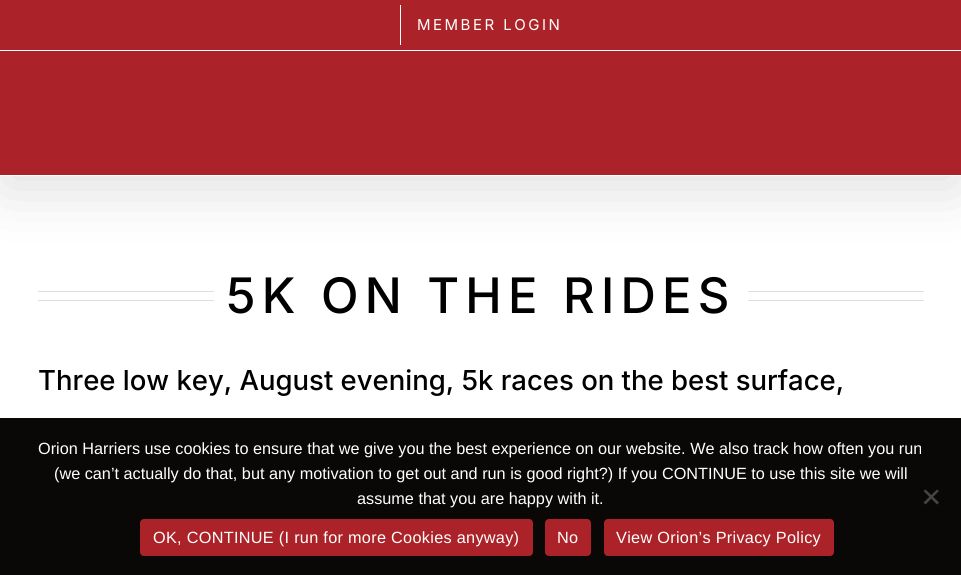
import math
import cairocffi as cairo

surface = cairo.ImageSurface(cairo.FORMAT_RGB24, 961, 575)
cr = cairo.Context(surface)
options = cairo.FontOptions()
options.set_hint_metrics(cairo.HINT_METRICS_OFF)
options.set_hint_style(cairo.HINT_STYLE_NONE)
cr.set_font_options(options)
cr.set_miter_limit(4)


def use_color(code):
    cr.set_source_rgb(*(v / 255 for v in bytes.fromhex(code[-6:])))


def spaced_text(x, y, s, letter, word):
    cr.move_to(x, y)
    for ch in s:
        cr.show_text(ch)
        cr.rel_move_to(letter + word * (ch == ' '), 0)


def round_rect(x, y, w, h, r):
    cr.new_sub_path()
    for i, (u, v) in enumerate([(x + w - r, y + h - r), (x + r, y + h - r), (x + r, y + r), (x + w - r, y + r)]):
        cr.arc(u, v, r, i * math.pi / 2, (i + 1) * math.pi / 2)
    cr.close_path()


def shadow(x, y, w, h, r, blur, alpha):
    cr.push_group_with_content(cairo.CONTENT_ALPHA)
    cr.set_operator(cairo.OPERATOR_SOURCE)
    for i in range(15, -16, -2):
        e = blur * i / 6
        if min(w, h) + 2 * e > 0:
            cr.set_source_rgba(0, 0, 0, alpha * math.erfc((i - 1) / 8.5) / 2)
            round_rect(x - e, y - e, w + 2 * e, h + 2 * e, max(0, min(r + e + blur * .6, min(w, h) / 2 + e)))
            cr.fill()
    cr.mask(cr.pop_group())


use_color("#ffffff")
cr.paint()
use_color("#000000")
shadow(3, 15, 956, 171, 0, 31, 0.14)
use_color("#ab2328")
cr.rectangle(0, 0, 961, 50)
cr.fill()
use_color("#ffffff")
cr.rectangle(0, 50, 961, 1)
cr.fill()
cr.rectangle(400, 5, 1, 40)
cr.fill()
cr.select_font_face("Inter")
cr.set_font_size(15)
spaced_text(417, 30, "MEMBER LOGIN", 2.5, 0)
use_color("#ab2328")
cr.rectangle(0, 51, 961, 124)
cr.fill()
use_color("#ffffff")
cr.rectangle(0, 175, 961, 1)
cr.fill()
use_color("#e0dede")
cr.rectangle(38, 291, 176, 1)
cr.fill()
cr.rectangle(38, 300, 176, 1)
cr.fill()
cr.select_font_face("Inter Medium")
cr.set_font_size(48.9)
use_color("#000000")
spaced_text(226, 313, "5K ON THE RIDES", 6.25, 0)
use_color("#e0dede")
cr.rectangle(748, 291, 176, 1)
cr.fill()
cr.rectangle(748, 300, 176, 1)
cr.fill()
cr.set_font_size(27.5)
use_color("#000000")
cr.move_to(38, 390)
cr.show_text("Three low key, August evening, 5k races on the best surface,")
use_color("#0a0707")
cr.rectangle(0, 418, 961, 157)
cr.fill()
cr.select_font_face("Liberation Sans")
cr.set_font_size(16.25)
use_color("#ffffff")
cr.move_to(38, 454)
cr.show_text("Orion Harriers use cookies to ensure that we give you the best experience on our website. We also track how often you run")
cr.move_to(54, 479)
cr.show_text("(we can’t actually do that, but any motivation to get out and run is good right?) If you CONTINUE to use this site we will")
cr.move_to(357, 504)
cr.show_text("assume that you are happy with it.")
use_color("#454444")
cr.new_path()
cr.move_to(937, 489.5)
cr.line_to(939, 491)
cr.line_to(925.5, 504.5)
cr.line_to(923.5, 502.5)
cr.close_path()
cr.fill()
cr.new_path()
cr.move_to(923.5, 491)
cr.line_to(925.5, 489.5)
cr.line_to(939, 502.5)
cr.line_to(937, 504.5)
cr.close_path()
cr.fill()
use_color("#ab2328")
round_rect(140, 519, 393, 37, 4)
cr.fill()
use_color("#ffffff")
spaced_text(153, 543, "OK, CONTINUE (I run for more Cookies anyway)", 0.3, 0)
use_color("#ab2328")
round_rect(545, 519, 46, 37, 4)
cr.fill()
use_color("#ffffff")
spaced_text(557, 543, "No", 0.3, 0)
use_color("#ab2328")
round_rect(604, 519, 230, 37, 4)
cr.fill()
use_color("#ffffff")
spaced_text(616, 543, "View Orion’s Privacy Policy", 0.3, 0)
surface.write_to_png("result.png")
